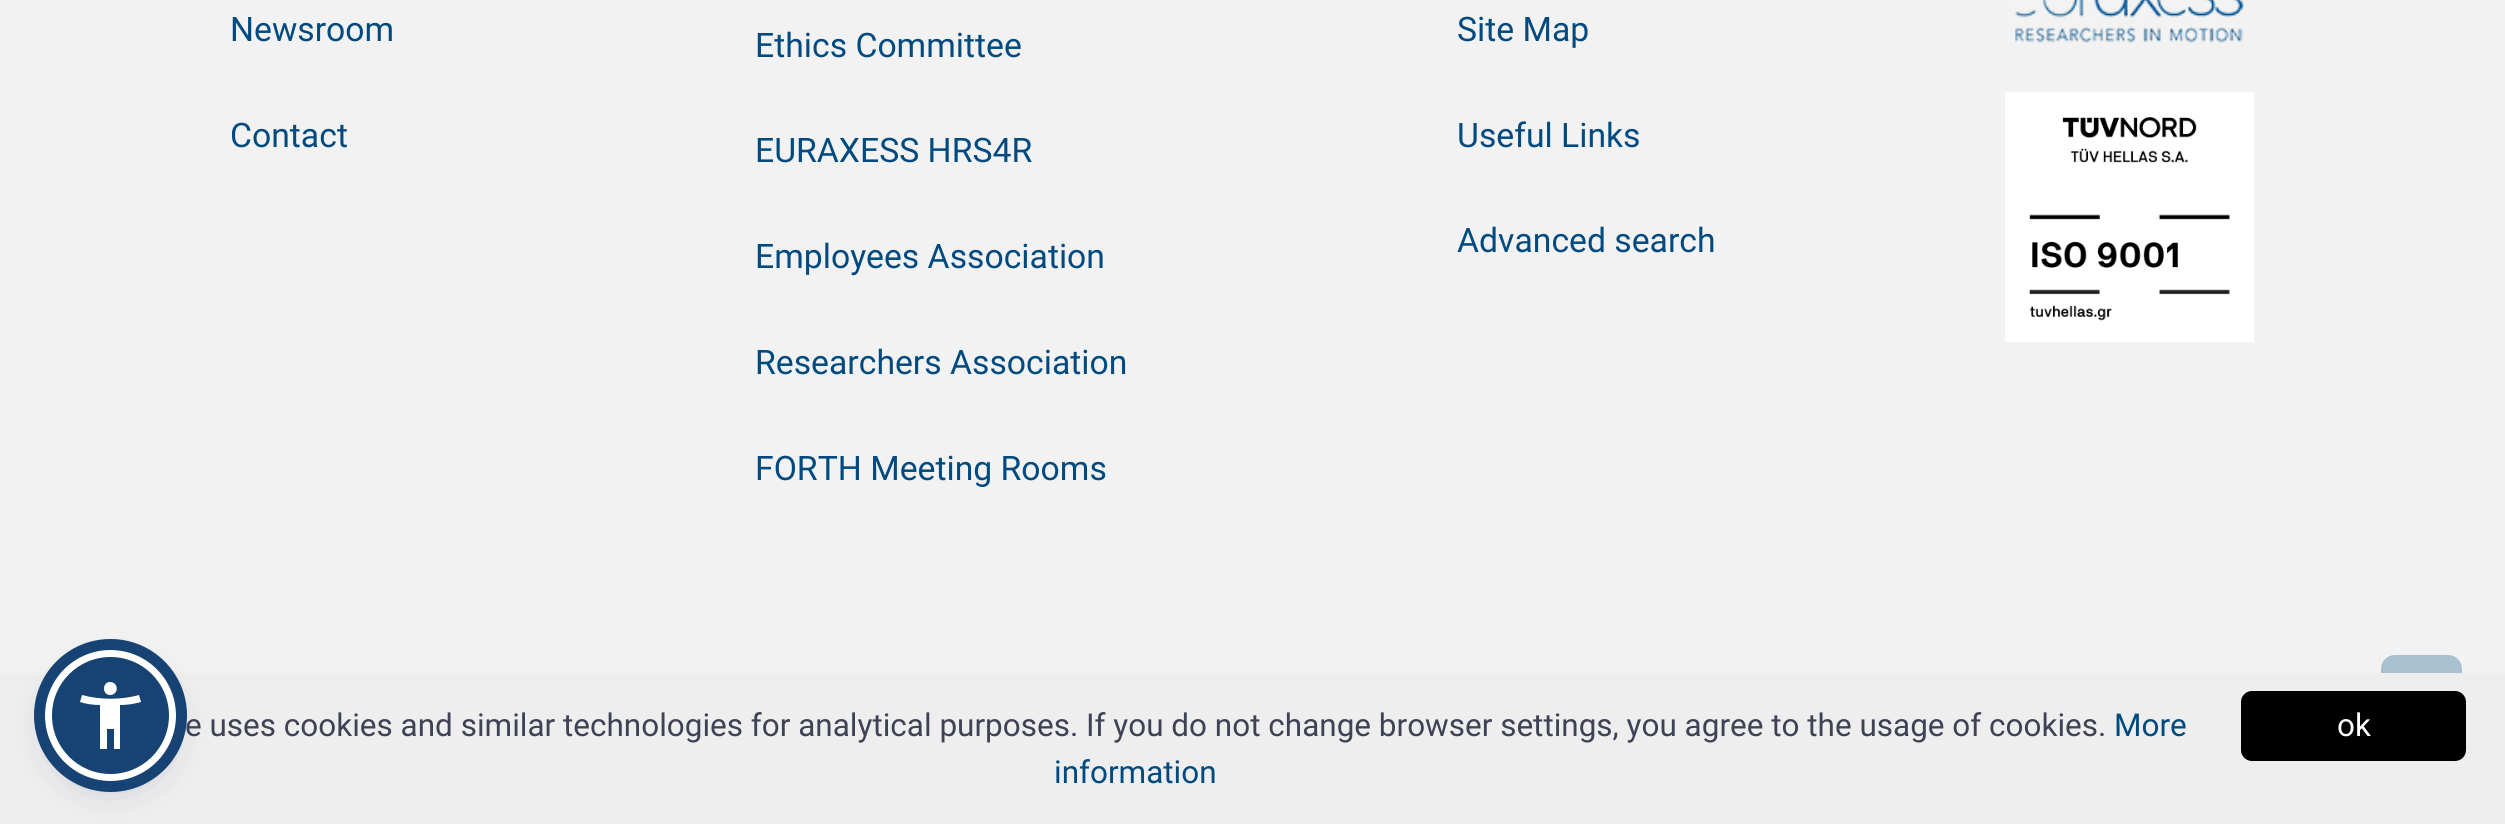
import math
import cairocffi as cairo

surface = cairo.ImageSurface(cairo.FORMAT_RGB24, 2505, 824)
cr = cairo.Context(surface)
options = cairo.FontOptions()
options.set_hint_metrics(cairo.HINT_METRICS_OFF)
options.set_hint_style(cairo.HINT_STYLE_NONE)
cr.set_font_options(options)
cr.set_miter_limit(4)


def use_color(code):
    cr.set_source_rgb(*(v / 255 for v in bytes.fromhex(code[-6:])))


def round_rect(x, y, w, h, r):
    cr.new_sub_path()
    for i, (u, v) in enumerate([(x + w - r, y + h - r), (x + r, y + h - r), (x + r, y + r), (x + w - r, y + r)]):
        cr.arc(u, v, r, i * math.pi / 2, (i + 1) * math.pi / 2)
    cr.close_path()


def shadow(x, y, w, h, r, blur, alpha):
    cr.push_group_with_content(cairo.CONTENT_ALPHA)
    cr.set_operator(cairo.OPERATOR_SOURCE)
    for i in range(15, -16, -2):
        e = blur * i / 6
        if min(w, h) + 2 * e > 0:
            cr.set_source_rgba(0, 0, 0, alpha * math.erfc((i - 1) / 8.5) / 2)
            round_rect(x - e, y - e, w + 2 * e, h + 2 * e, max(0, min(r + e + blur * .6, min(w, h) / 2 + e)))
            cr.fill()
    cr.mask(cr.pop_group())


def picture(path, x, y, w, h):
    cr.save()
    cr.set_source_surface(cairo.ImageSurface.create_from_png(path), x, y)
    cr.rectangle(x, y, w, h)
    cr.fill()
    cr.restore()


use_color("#f2f2f2")
cr.paint()
cr.select_font_face("Roboto")
cr.set_font_size(33.75)
use_color("#004a80")
cr.move_to(230, 41)
cr.show_text("Newsroom")
cr.move_to(230, 147)
cr.show_text("Contact")
cr.move_to(755, 57)
cr.show_text("Ethics Committee")
cr.move_to(755, 162)
cr.show_text("EURAXESS HRS4R")
cr.move_to(755, 268)
cr.show_text("Employees Association")
cr.move_to(755, 374)
cr.show_text("Researchers Association")
cr.move_to(755, 480)
cr.show_text("FORTH Meeting Rooms")
cr.move_to(1457, 41)
cr.show_text("Site Map")
cr.move_to(1457, 147)
cr.show_text("Useful Links")
cr.move_to(1457, 252)
cr.show_text("Advanced search")
picture("img1.png", 2007, 0, 237, 45)
picture("img2.png", 2005, 92, 250, 250)
use_color("#a9c0d0")
round_rect(2381, 655, 81, 81, 14)
cr.fill()
use_color("#eeeeee")
cr.rectangle(0, 673, 2505, 151)
cr.fill()
use_color("#5d6494")
shadow(45, 655, 131, 130, 65, 4.5, 0.2)
use_color("#252c61")
shadow(45, 662, 131, 130, 65, 17, 0.15)
use_color("#174374")
cr.arc(110.5, 715.5, 62, 0, 2 * math.pi)
cr.fill_preserve()
use_color("#ffffff")
cr.set_line_width(7)
cr.stroke()
cr.set_font_size(31.5)
use_color("#3f4254")
cr.move_to(185, 736)
cr.show_text("e uses cookies and similar technologies for analytical purposes. If you do not change browser settings, you agree to the usage of cookies.")
cr.new_path()
cr.arc(110.5, 715.5, 71, 0, 2 * math.pi)
use_color("#174374")
cr.set_line_width(11)
cr.stroke()
use_color("#ffffff")
cr.new_path()
cr.move_to(139, 695)
cr.curve_to(121, 700, 100, 700, 82, 695)
cr.line_to(80, 702)
cr.curve_to(86, 704, 93, 705, 100, 705)
cr.line_to(100, 749)
cr.line_to(107, 749)
cr.line_to(107, 729)
cr.line_to(114, 729)
cr.line_to(114, 749)
cr.line_to(120, 749)
cr.line_to(120, 705)
cr.curve_to(127, 705, 134, 704, 141, 702)
cr.close_path()
cr.move_to(110, 695)
cr.curve_to(119, 695, 119, 682, 110, 682)
cr.curve_to(102, 682, 102, 695, 110, 695)
cr.close_path()
cr.fill()
use_color("#004a80")
cr.move_to(2114, 736)
cr.show_text("More")
cr.move_to(1054, 783)
cr.show_text("information")
use_color("#000000")
round_rect(2241, 691, 225, 70, 11)
cr.fill()
use_color("#ffffff")
cr.move_to(2337, 736)
cr.show_text("ok")
surface.write_to_png("result.png")
